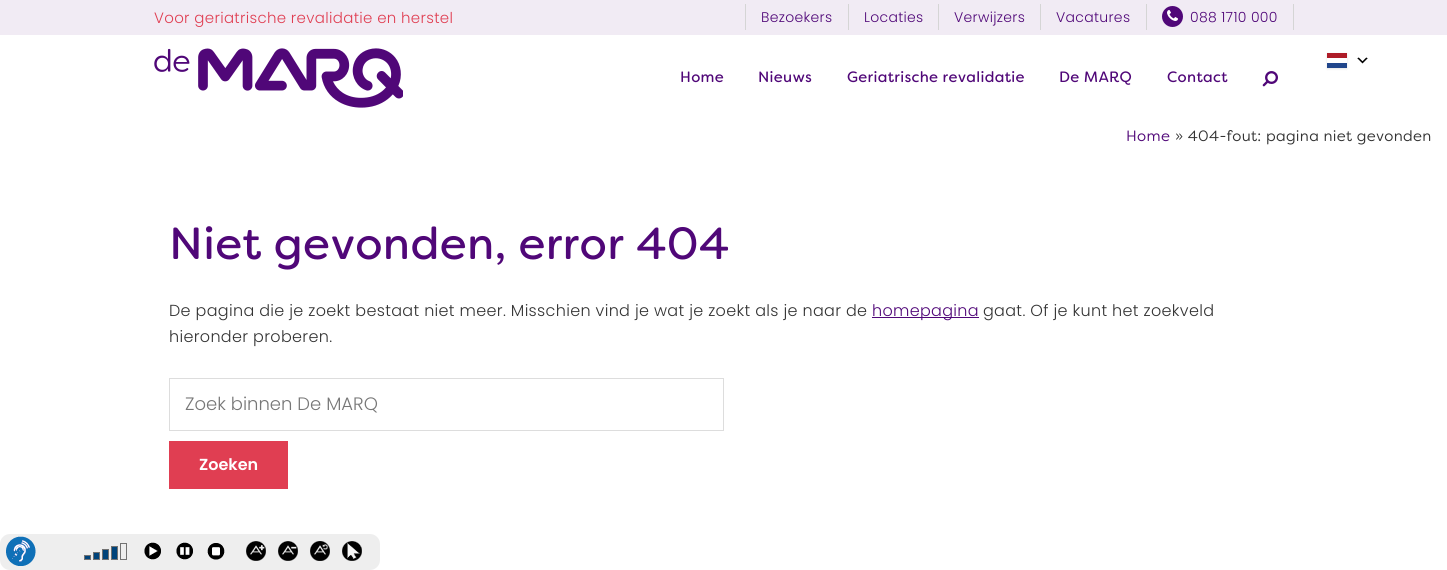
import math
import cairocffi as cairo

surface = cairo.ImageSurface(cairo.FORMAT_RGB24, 1447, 570)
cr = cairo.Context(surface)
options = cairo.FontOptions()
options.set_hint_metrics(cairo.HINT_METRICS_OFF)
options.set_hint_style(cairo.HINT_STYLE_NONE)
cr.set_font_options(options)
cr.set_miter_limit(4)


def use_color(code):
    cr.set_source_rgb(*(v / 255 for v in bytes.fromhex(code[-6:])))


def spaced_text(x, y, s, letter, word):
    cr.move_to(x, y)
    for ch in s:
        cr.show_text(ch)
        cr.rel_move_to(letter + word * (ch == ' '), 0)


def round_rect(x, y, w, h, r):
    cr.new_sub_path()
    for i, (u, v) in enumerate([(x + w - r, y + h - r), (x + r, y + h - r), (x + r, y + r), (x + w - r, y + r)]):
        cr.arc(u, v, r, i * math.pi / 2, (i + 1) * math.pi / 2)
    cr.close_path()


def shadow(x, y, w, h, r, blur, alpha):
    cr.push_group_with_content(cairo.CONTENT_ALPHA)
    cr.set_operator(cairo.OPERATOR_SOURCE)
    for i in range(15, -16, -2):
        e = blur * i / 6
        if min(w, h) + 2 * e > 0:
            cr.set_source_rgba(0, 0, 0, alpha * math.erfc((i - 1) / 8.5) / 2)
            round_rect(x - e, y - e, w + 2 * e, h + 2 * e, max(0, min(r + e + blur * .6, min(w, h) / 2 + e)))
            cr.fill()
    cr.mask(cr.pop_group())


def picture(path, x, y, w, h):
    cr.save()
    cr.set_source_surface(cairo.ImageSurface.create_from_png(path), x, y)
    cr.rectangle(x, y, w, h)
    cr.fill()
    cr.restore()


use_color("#ffffff")
cr.paint()
use_color("#f1ebf4")
cr.rectangle(0, 0, 1447, 35)
cr.fill()
cr.select_font_face("Poppins Light")
cr.set_font_size(15)
use_color("#e03e52")
spaced_text(154, 23, "Voor geriatrische revalidatie en herstel", 0.32, 0)
use_color("#d5d5d5")
cr.rectangle(848, 4, 1, 26)
cr.fill()
cr.rectangle(745, 4, 1, 26)
cr.fill()
cr.set_font_size(14)
use_color("#500778")
spaced_text(761, 22, "Bezoekers", 0.32, 0)
use_color("#d5d5d5")
cr.rectangle(938, 4, 1, 26)
cr.fill()
use_color("#500778")
spaced_text(864, 22, "Locaties", 0.32, 0)
use_color("#d5d5d5")
cr.rectangle(1040, 4, 1, 26)
cr.fill()
use_color("#500778")
spaced_text(954, 22, "Verwijzers", 0.32, 0)
use_color("#d5d5d5")
cr.rectangle(1146, 4, 1, 26)
cr.fill()
use_color("#500778")
spaced_text(1056, 22, "Vacatures", 0.32, 0)
use_color("#d5d5d5")
cr.rectangle(1293, 4, 1, 26)
cr.fill()
use_color("#500778")
cr.arc(1172.5, 16.5, 10.5, 0, 2 * math.pi)
cr.fill()
picture("img1.png", 1167, 10, 11, 11)
spaced_text(1190, 22, "088 1710 000", 0.32, 0)
picture("img2.png", 154, 48, 249, 60)
use_color("#000000")
shadow(1327, 54, 20, 15, 0, 1, 0.1)
use_color("#21468b")
cr.rectangle(1327, 63, 20, 5)
cr.fill()
use_color("#ffffff")
cr.rectangle(1327, 58, 20, 5)
cr.fill()
use_color("#ae1c28")
cr.rectangle(1327, 53, 20, 5)
cr.fill()
picture("img3.png", 1357, 57, 11, 7)
cr.select_font_face("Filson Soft")
cr.set_font_size(15)
use_color("#500778")
spaced_text(680, 82, "Home", 0.32, 0)
spaced_text(758, 82, "Nieuws", 0.32, 0)
spaced_text(847, 82, "Geriatrische revalidatie", 0.32, 0)
spaced_text(1059, 82, "De MARQ", 0.32, 0)
spaced_text(1167, 82, "Contact", 0.32, 0)
picture("img4.png", 1262, 71, 16, 16)
cr.select_font_face("Filson Soft Light")
spaced_text(1126, 141, "Home", 0.32, 0)
use_color("#333333")
spaced_text(1175, 141, "» 404-fout: pagina niet gevonden", 0.32, 0)
cr.select_font_face("Filson Soft")
cr.set_font_size(45)
use_color("#500778")
spaced_text(169, 259, "Niet gevonden, error 404", 0.32, 0)
cr.select_font_face("Poppins Light")
cr.set_font_size(16)
use_color("#333333")
spaced_text(169, 316, "De pagina die je zoekt bestaat niet meer. Misschien vind je wat je zoekt als je naar de", 0.32, 0)
use_color("#500778")
cr.rectangle(872, 317, 107, 1)
cr.fill()
spaced_text(872, 316, "homepagina", 0.32, 0)
use_color("#333333")
spaced_text(983, 316, "gaat. Of je kunt het zoekveld", 0.32, 0)
spaced_text(169, 342, "hieronder proberen.", 0.32, 0)
cr.rectangle(169.5, 378.5, 554, 52)
use_color("#dddddd")
cr.set_line_width(1)
cr.stroke()
cr.set_font_size(18)
use_color("#777777")
cr.move_to(185, 410)
cr.show_text("Zoek binnen De MARQ")
use_color("#e03e52")
cr.rectangle(169, 441, 119, 48)
cr.fill()
cr.select_font_face("Poppins SemiBold")
cr.set_font_size(16)
use_color("#ffffff")
cr.move_to(199, 470)
cr.show_text("Zoeken")
use_color("#eeeeee")
round_rect(0, 534, 380, 36, 10)
cr.fill()
picture("img5.png", 6, 536, 30, 30)
use_color("#00437a")
cr.rectangle(84.5, 555.5, 6, 4)
cr.fill_preserve()
use_color("#727272")
cr.stroke()
use_color("#00437a")
cr.rectangle(93.5, 552.5, 6, 7)
cr.fill_preserve()
use_color("#727272")
cr.stroke()
use_color("#00437a")
cr.rectangle(102.5, 549.5, 6, 10)
cr.fill_preserve()
use_color("#727272")
cr.stroke()
use_color("#00437a")
cr.rectangle(111.5, 546.5, 6, 13)
cr.fill_preserve()
use_color("#727272")
cr.stroke()
cr.rectangle(120.5, 543.5, 6, 16)
cr.stroke()
picture("img6.png", 144, 542, 17, 18)
picture("img7.png", 176, 542, 17, 18)
picture("img8.png", 207, 543, 18, 17)
picture("img9.png", 246, 541, 20, 20)
picture("img10.png", 278, 541, 20, 20)
picture("img11.png", 310, 541, 20, 20)
picture("img12.png", 342, 541, 20, 20)
surface.write_to_png("result.png")
